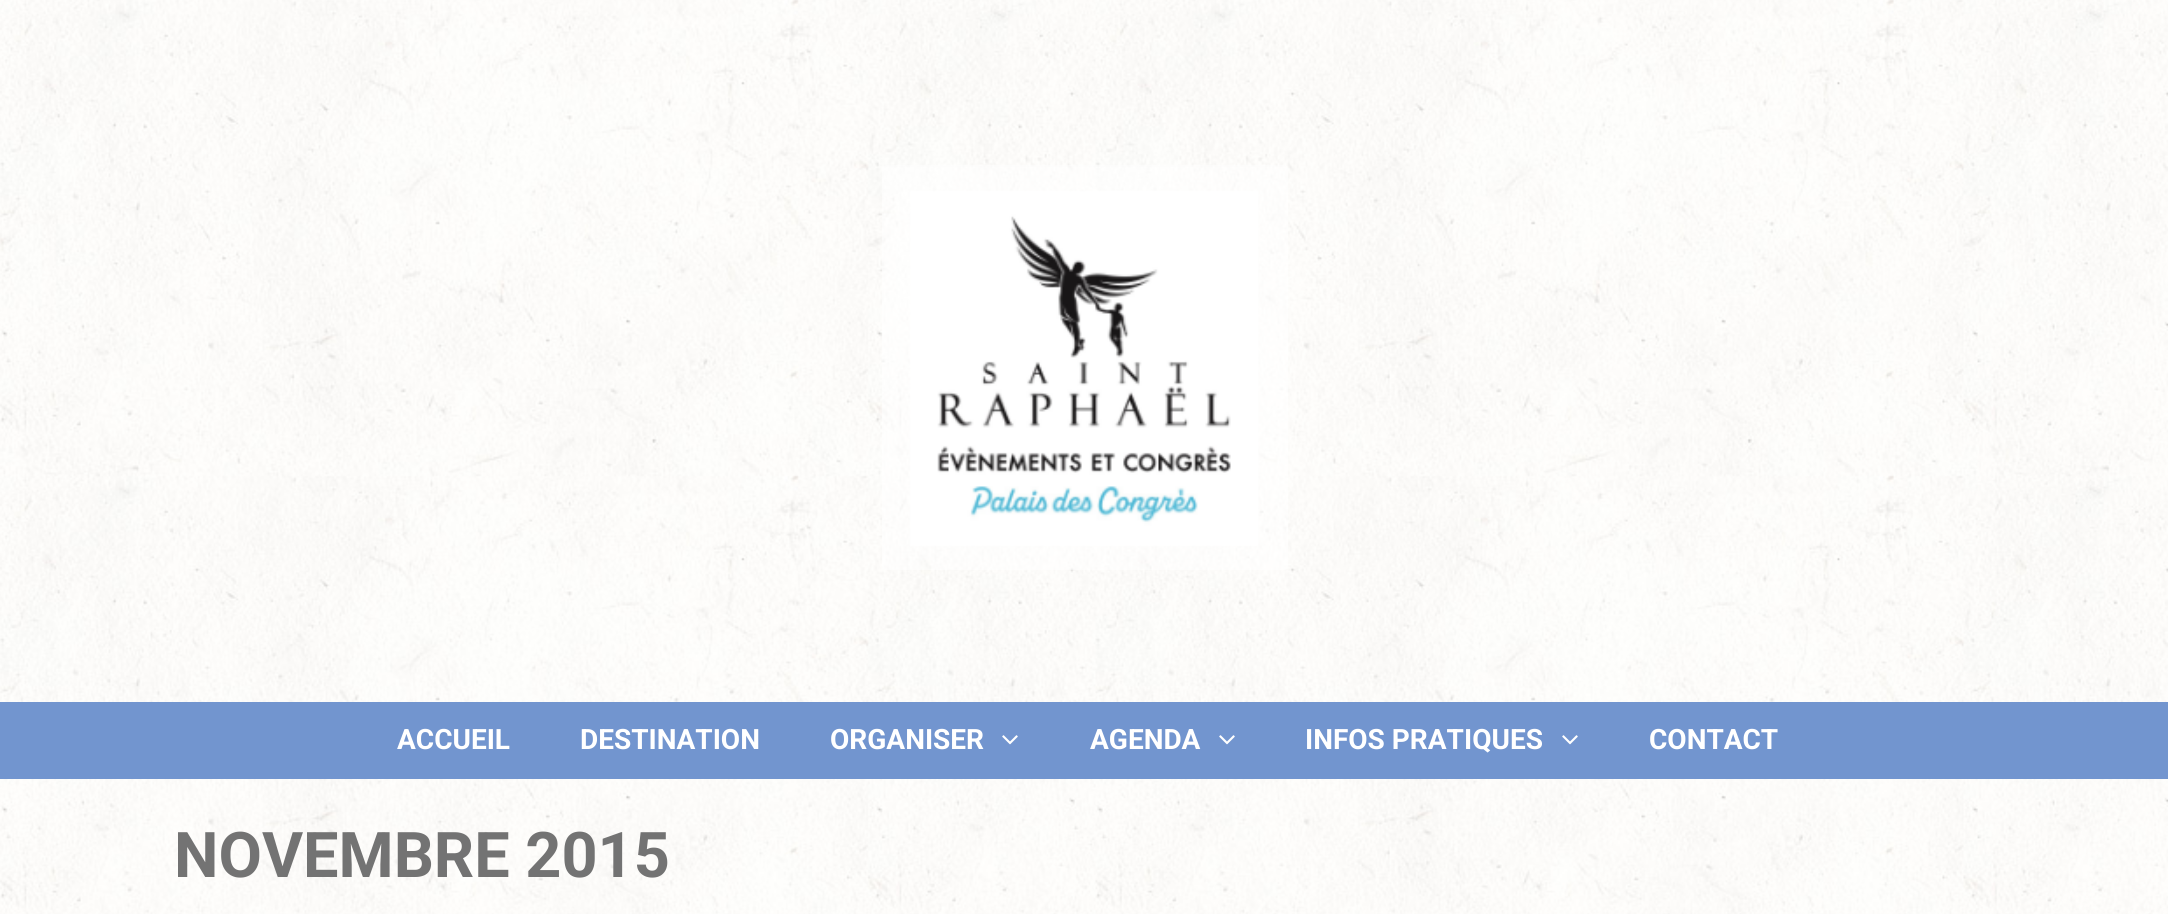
import math
import cairocffi as cairo

surface = cairo.ImageSurface(cairo.FORMAT_RGB24, 2168, 914)
cr = cairo.Context(surface)
options = cairo.FontOptions()
options.set_hint_metrics(cairo.HINT_METRICS_OFF)
options.set_hint_style(cairo.HINT_STYLE_NONE)
cr.set_font_options(options)
cr.set_miter_limit(4)


def use_color(code):
    cr.set_source_rgb(*(v / 255 for v in bytes.fromhex(code[-6:])))


def picture(path, x, y, w, h):
    cr.save()
    cr.set_source_surface(cairo.ImageSurface.create_from_png(path), x, y)
    cr.rectangle(x, y, w, h)
    cr.fill()
    cr.restore()


use_color("#ffffff")
cr.paint()
picture("img1.png", 0, 0, 2168, 914)
picture("img2.png", 882, 165, 406, 405)
use_color("#7295cf")
cr.rectangle(0, 702, 2168, 77)
cr.fill()
cr.select_font_face("Roboto", cairo.FONT_SLANT_NORMAL, cairo.FONT_WEIGHT_BOLD)
cr.set_font_size(28)
use_color("#ffffff")
cr.move_to(397, 749)
cr.show_text("ACCUEIL")
cr.move_to(580, 749)
cr.show_text("DESTINATION")
cr.move_to(830, 749)
cr.show_text("ORGANISER")
picture("img3.png", 1002, 735, 16, 10)
cr.move_to(1090, 749)
cr.show_text("AGENDA")
picture("img3.png", 1219, 735, 16, 10)
cr.move_to(1305, 749)
cr.show_text("INFOS PRATIQUES")
picture("img3.png", 1562, 735, 16, 10)
cr.move_to(1649, 749)
cr.show_text("CONTACT")
cr.set_font_size(63)
use_color("#737373")
cr.move_to(174, 877)
cr.show_text("NOVEMBRE 2015")
surface.write_to_png("result.png")
